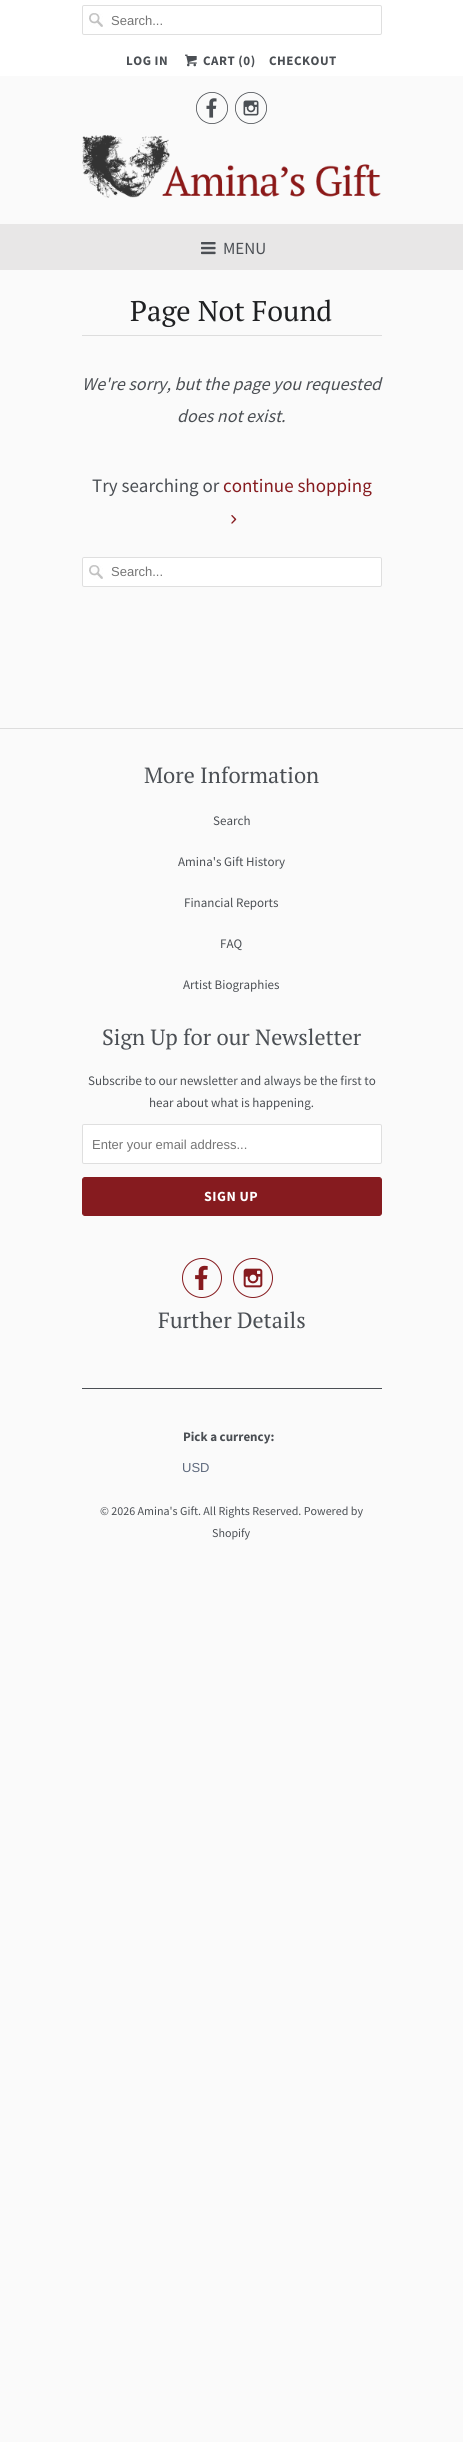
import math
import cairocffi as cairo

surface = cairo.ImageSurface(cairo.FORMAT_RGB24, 463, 2442)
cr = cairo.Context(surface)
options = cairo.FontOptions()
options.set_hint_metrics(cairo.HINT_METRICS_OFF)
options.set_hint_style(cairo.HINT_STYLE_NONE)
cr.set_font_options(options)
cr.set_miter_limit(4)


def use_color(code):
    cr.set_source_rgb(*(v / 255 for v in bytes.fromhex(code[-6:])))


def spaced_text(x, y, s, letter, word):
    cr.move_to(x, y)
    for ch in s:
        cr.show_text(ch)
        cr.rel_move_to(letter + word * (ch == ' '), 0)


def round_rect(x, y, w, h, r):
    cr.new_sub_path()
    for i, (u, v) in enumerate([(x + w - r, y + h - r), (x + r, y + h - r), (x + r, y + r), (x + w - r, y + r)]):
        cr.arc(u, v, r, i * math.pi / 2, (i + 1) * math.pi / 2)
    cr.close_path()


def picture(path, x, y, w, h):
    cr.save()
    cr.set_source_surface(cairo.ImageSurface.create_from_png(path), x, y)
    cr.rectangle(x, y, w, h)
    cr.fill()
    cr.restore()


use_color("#fafafa")
cr.paint()
use_color("#ffffff")
cr.rectangle(0, 0, 463, 76)
cr.fill()
picture("img1.png", 89, 13, 14, 14)
round_rect(82.5, 5.5, 299, 29, 1.5)
use_color("#dfdfdf")
cr.set_line_width(1)
cr.stroke()
cr.select_font_face("Liberation Sans")
cr.set_font_size(13)
use_color("#757575")
cr.move_to(111, 25)
cr.show_text("Search...")
cr.select_font_face("Source Sans Pro", cairo.FONT_SLANT_NORMAL, cairo.FONT_WEIGHT_BOLD)
use_color("#4b4f54")
spaced_text(126, 65, "LOG IN", 0.5, 0)
picture("img2.png", 185, 54, 12, 13)
spaced_text(203, 65, "CART (0)", 0.5, 0)
spaced_text(269, 65, "CHECKOUT", 0.5, 0)
picture("img3.png", 196, 92, 32, 32)
picture("img4.png", 235, 92, 32, 32)
picture("img5.png", 82, 135, 299, 63)
use_color("#e8e7e7")
cr.rectangle(0, 224, 463, 46)
cr.fill()
picture("img6.png", 201, 242, 15, 13)
cr.select_font_face("Source Sans Pro")
cr.set_font_size(17)
use_color("#4b4f54")
cr.move_to(223, 254)
cr.show_text("MENU")
use_color("#dddddd")
cr.rectangle(82, 335, 300, 1)
cr.fill()
cr.select_font_face("PT Serif")
cr.set_font_size(28.5)
use_color("#1f2022")
cr.move_to(130, 321)
cr.show_text("Page Not Found")
cr.select_font_face("Source Sans Pro", cairo.FONT_SLANT_ITALIC)
cr.set_font_size(18)
use_color("#4b4f54")
cr.move_to(82, 390)
cr.show_text("We're sorry, but the page you requested")
cr.move_to(177, 422)
cr.show_text("does not exist.")
cr.select_font_face("Source Sans Pro")
cr.set_font_size(19)
cr.move_to(92, 492)
cr.show_text("Try searching or")
use_color("#861b1f")
cr.move_to(223, 492)
cr.show_text("continue shopping")
picture("img7.png", 231, 515, 6, 9)
use_color("#ffffff")
round_rect(82, 557, 300, 30, 2)
cr.fill()
picture("img1.png", 89, 565, 14, 14)
round_rect(82.5, 557.5, 299, 29, 1.5)
use_color("#dfdfdf")
cr.stroke()
cr.select_font_face("Liberation Sans")
cr.set_font_size(13)
use_color("#757575")
cr.move_to(111, 576)
cr.show_text("Search...")
use_color("#dddddd")
cr.rectangle(0, 728, 463, 1)
cr.fill()
cr.select_font_face("PT Serif")
cr.set_font_size(22)
use_color("#4b4f54")
cr.move_to(144, 783)
cr.show_text("More Information")
cr.select_font_face("Source Sans Pro")
cr.set_font_size(13)
cr.move_to(213, 825)
cr.show_text("Search")
cr.move_to(178, 866)
cr.show_text("Amina's Gift History")
cr.move_to(184, 907)
cr.show_text("Financial Reports")
cr.move_to(220, 948)
cr.show_text("FAQ")
cr.move_to(183, 989)
cr.show_text("Artist Biographies")
cr.select_font_face("PT Serif")
cr.set_font_size(22)
cr.move_to(102, 1045)
cr.show_text("Sign Up for our Newsletter")
cr.select_font_face("Source Sans Pro")
cr.set_font_size(13)
cr.move_to(88, 1085)
cr.show_text("Subscribe to our newsletter and always be the first to")
cr.move_to(149, 1107)
cr.show_text("hear about what is happening.")
use_color("#ffffff")
round_rect(82.5, 1124.5, 299, 39, 1.5)
cr.fill_preserve()
use_color("#dfdfdf")
cr.stroke()
cr.select_font_face("Liberation Sans")
use_color("#757575")
cr.move_to(92, 1149)
cr.show_text("Enter your email address...")
use_color("#861b1f")
round_rect(82.5, 1177.5, 299, 38, 2.5)
cr.fill_preserve()
cr.stroke()
cr.select_font_face("Source Sans Pro", cairo.FONT_SLANT_NORMAL, cairo.FONT_WEIGHT_BOLD)
cr.set_font_size(14)
use_color("#ffffff")
spaced_text(204, 1201, "SIGN UP", 0.5, 0)
picture("img8.png", 182, 1258, 40, 40)
picture("img9.png", 233, 1258, 40, 40)
cr.select_font_face("PT Serif")
cr.set_font_size(22)
use_color("#4b4f54")
cr.move_to(158, 1328)
cr.show_text("Further Details")
cr.rectangle(82, 1388, 300, 1)
cr.fill()
cr.select_font_face("Source Sans Pro", cairo.FONT_SLANT_NORMAL, cairo.FONT_WEIGHT_BOLD)
cr.set_font_size(13)
cr.move_to(183, 1441)
cr.show_text("Pick a currency:")
cr.select_font_face("Liberation Sans")
use_color("#5f6a7d")
cr.move_to(182, 1472)
cr.show_text("USD")
cr.select_font_face("Source Sans Pro")
cr.set_font_size(12)
use_color("#4b4f54")
cr.move_to(100, 1515)
cr.show_text("© 2026 Amina's Gift. All Rights Reserved. Powered by")
cr.move_to(212, 1537)
cr.show_text("Shopify")
surface.write_to_png("result.png")
